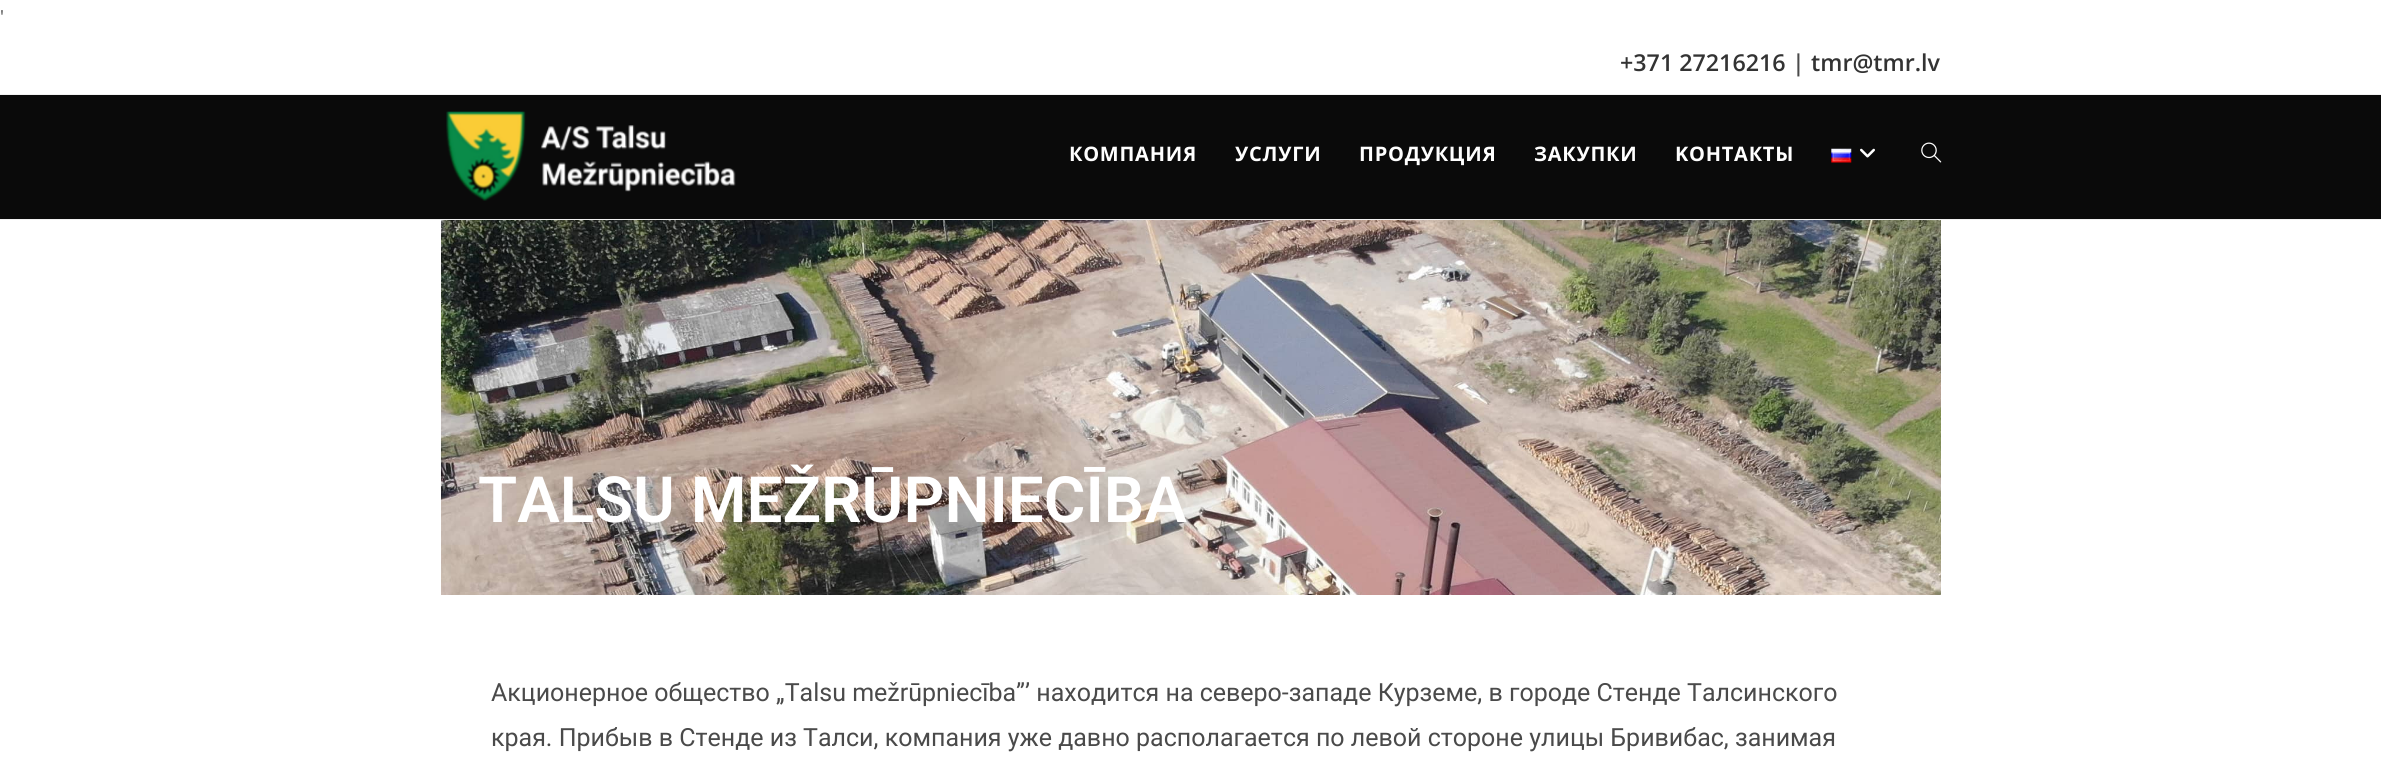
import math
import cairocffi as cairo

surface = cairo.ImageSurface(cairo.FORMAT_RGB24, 2381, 778)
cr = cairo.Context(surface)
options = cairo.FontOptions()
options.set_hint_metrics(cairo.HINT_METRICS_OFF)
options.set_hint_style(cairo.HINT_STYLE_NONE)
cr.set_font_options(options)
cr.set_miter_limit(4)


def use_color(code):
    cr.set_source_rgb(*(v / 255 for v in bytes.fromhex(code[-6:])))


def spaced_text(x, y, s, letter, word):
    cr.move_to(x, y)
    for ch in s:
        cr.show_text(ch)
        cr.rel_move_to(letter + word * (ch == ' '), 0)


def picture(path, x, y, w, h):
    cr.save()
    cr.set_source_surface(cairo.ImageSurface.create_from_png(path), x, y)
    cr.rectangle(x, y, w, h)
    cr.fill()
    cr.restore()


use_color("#ffffff")
cr.paint()
cr.select_font_face("Open Sans")
cr.set_font_size(18)
use_color("#4a4a4a")
cr.move_to(0, 23)
cr.show_text("'")
use_color("#f1f1f1")
cr.rectangle(0, 94, 2381, 1)
cr.fill()
cr.select_font_face("Open Sans SemiBold")
cr.set_font_size(23.25)
use_color("#333333")
cr.move_to(1620, 71)
cr.show_text("+371 27216216")
use_color("#4a4a4a")
cr.move_to(1792, 71)
cr.show_text("|")
use_color("#333333")
cr.move_to(1811, 71)
cr.show_text("tmr@tmr.lv")
use_color("#0a0a0a")
cr.rectangle(0, 95, 2381, 124)
cr.fill()
use_color("#f1f1f1")
cr.rectangle(0, 219, 2381, 1)
cr.fill()
picture("img1.png", 446, 111, 290, 90)
cr.select_font_face("Open Sans", cairo.FONT_SLANT_NORMAL, cairo.FONT_WEIGHT_BOLD)
cr.set_font_size(20)
use_color("#ffffff")
spaced_text(1069, 161, "КОМПАНИЯ", 0.75, 0)
spaced_text(1235, 161, "УСЛУГИ", 0.75, 0)
spaced_text(1359, 161, "ПРОДУКЦИЯ", 0.75, 0)
spaced_text(1534, 161, "ЗАКУПКИ", 0.75, 0)
spaced_text(1675, 161, "KОНТАКТЫ", 0.75, 0)
picture("img2.png", 1831, 148, 21, 15)
picture("img3.png", 1860, 148, 15, 10)
picture("img4.png", 1921, 142, 21, 21)
picture("img5.png", 441, 220, 1500, 375)
cr.select_font_face("Roboto SemiBold")
cr.set_font_size(63.75)
cr.move_to(478, 522)
cr.show_text("TALSU MEŽRŪPNIECĪBA")
cr.select_font_face("Roboto")
cr.set_font_size(25)
use_color("#4a4a4a")
cr.move_to(491, 701)
cr.show_text("Акционерное общество „Talsu mežrūpniecība”’ находится на северо-западе Курземе, в городе Стенде Талсинского")
cr.move_to(491, 746)
cr.show_text("края. Прибыв в Стенде из Талси, компания уже давно располагается по левой стороне улицы Бривибас, занимая")
surface.write_to_png("result.png")
